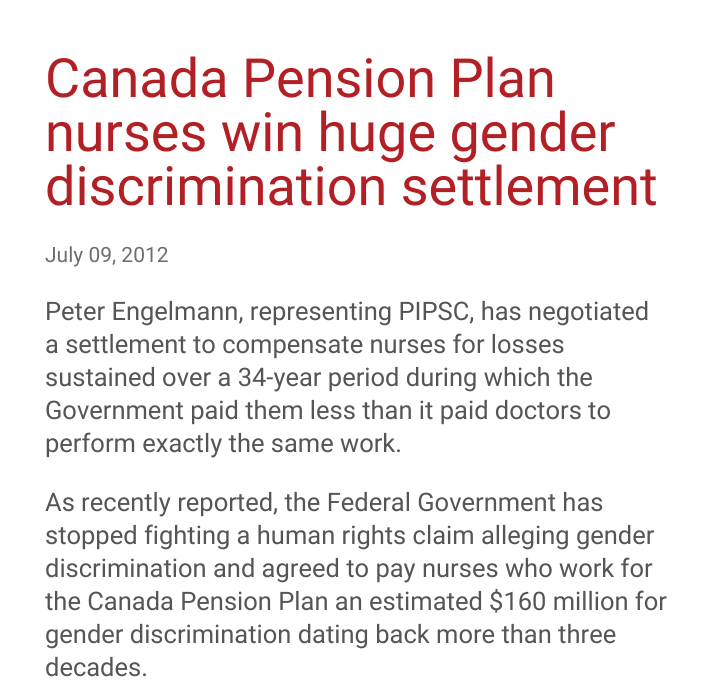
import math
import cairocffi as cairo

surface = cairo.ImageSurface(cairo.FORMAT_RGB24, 719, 690)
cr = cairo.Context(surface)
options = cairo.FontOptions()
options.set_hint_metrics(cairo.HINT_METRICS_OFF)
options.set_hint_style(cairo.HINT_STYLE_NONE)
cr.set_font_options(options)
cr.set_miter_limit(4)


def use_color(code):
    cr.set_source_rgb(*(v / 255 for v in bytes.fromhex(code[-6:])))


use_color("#ffffff")
cr.paint()
cr.select_font_face("Roboto")
cr.set_font_size(54)
use_color("#b21f24")
cr.move_to(45, 97)
cr.show_text("Canada Pension Plan")
cr.move_to(45, 151)
cr.show_text("nurses win huge gender")
cr.move_to(45, 205)
cr.show_text("discrimination settlement")
cr.set_font_size(21)
use_color("#6f6e6e")
cr.move_to(45, 262)
cr.show_text("July 09, 2012")
cr.set_font_size(25.5)
use_color("#555555")
cr.move_to(45, 320)
cr.show_text("Peter Engelmann, representing PIPSC, has negotiated")
cr.move_to(45, 353)
cr.show_text("a settlement to compensate nurses for losses")
cr.move_to(45, 386)
cr.show_text("sustained over a 34-year period during which the")
cr.move_to(45, 419)
cr.show_text("Government paid them less than it paid doctors to")
cr.move_to(45, 452)
cr.show_text("perform exactly the same work.")
cr.move_to(45, 511)
cr.show_text("As recently reported, the Federal Government has")
cr.move_to(45, 544)
cr.show_text("stopped fighting a human rights claim alleging gender")
cr.move_to(45, 577)
cr.show_text("discrimination and agreed to pay nurses who work for")
cr.move_to(45, 610)
cr.show_text("the Canada Pension Plan an estimated $160 million for")
cr.move_to(45, 643)
cr.show_text("gender discrimination dating back more than three")
cr.move_to(45, 676)
cr.show_text("decades.")
surface.write_to_png("result.png")
